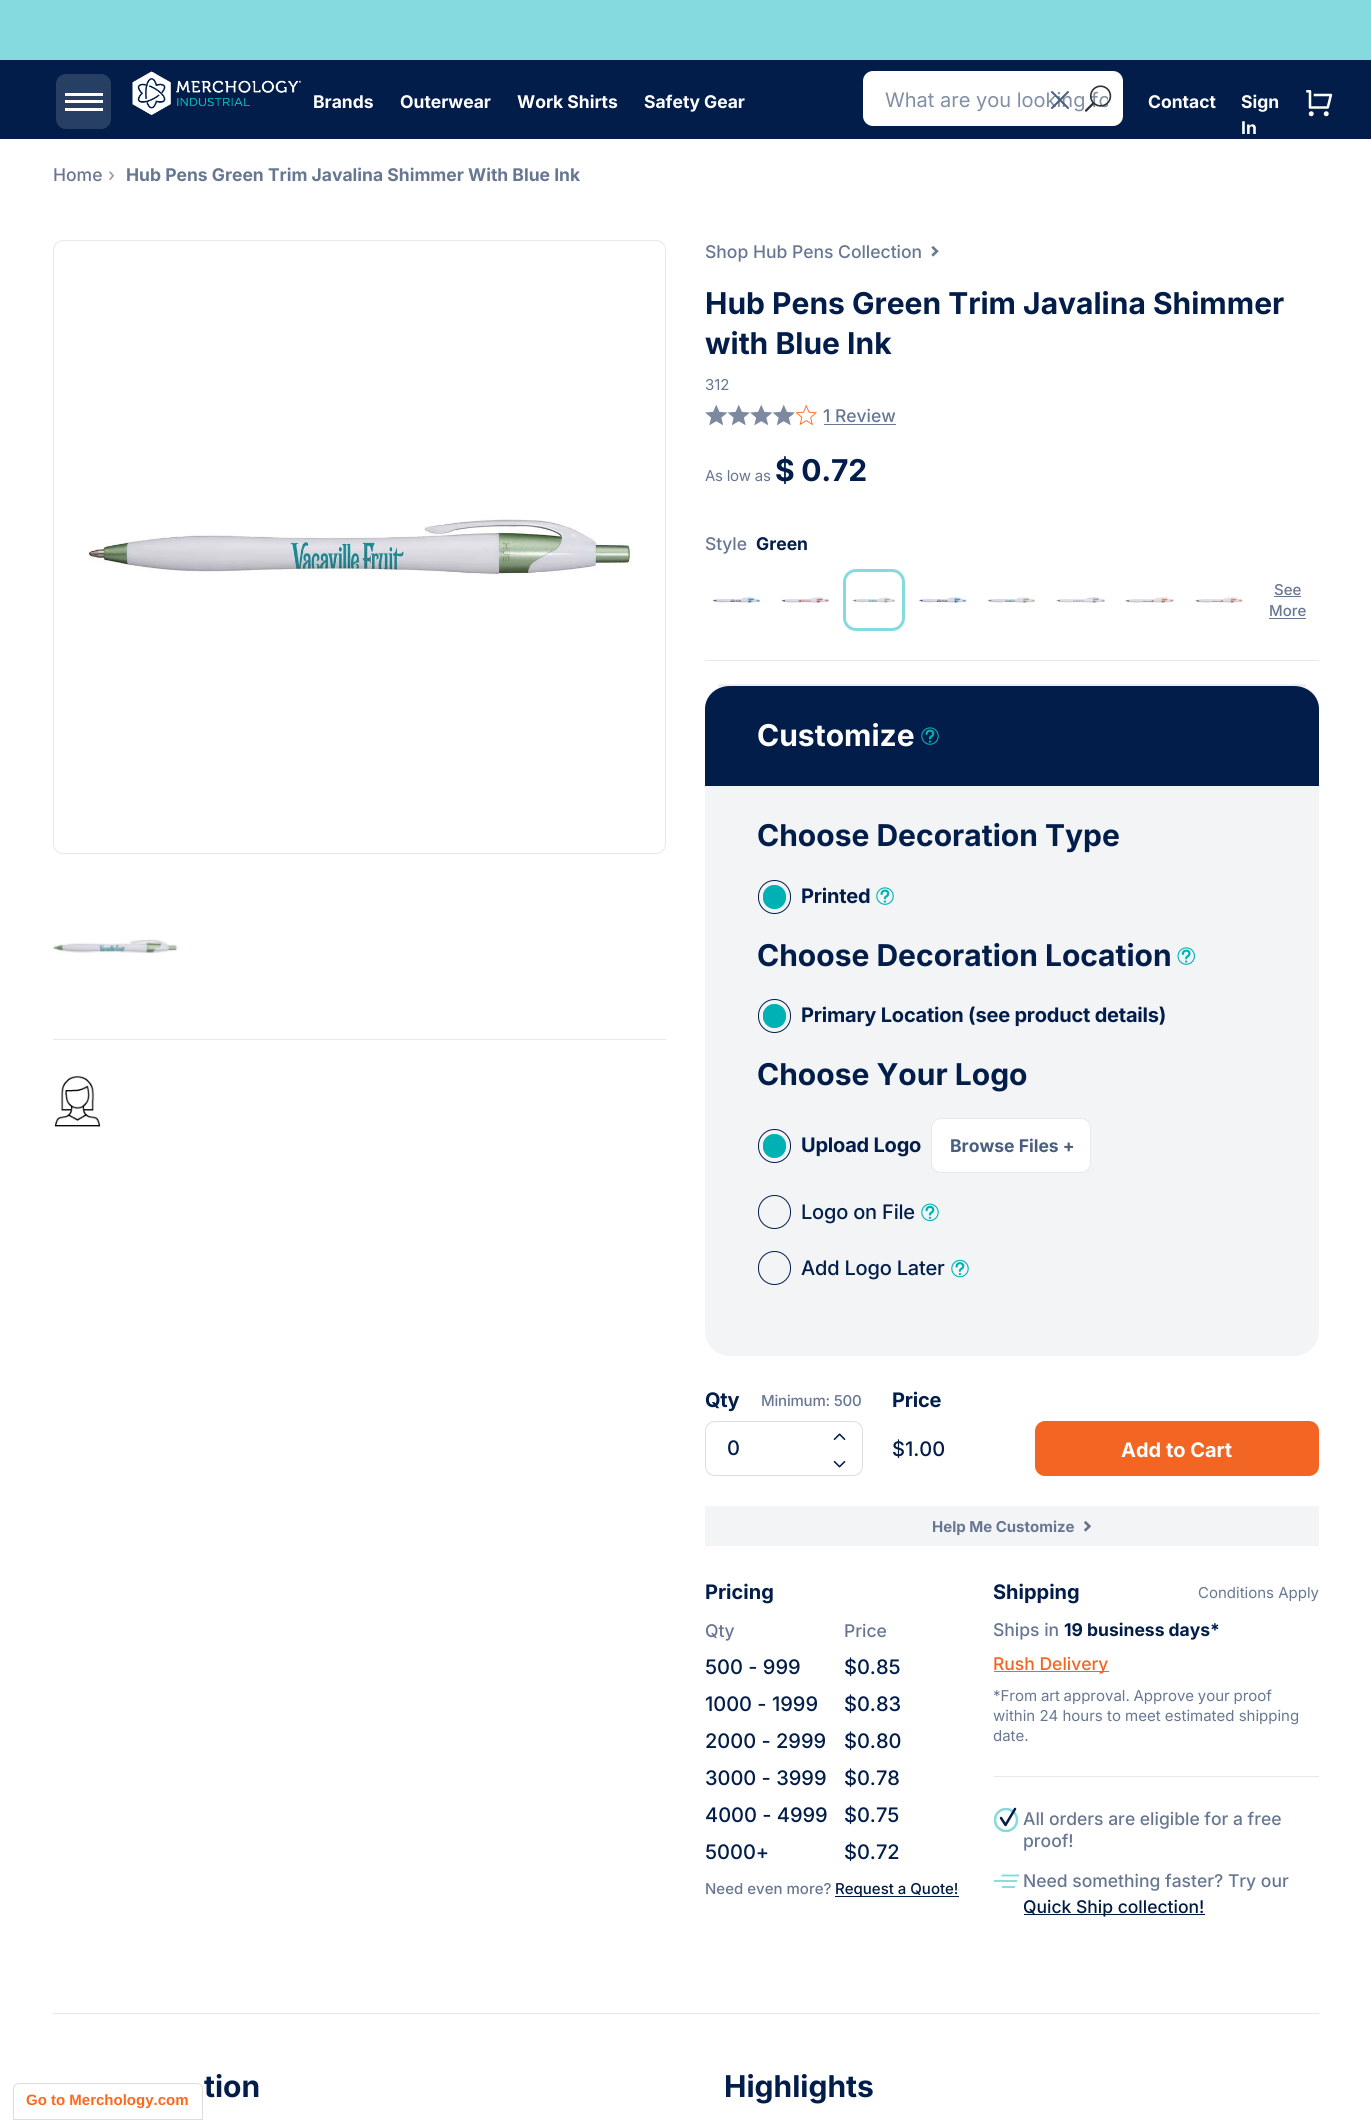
import math
import cairocffi as cairo

surface = cairo.ImageSurface(cairo.FORMAT_RGB24, 1371, 2120)
cr = cairo.Context(surface)
options = cairo.FontOptions()
options.set_hint_metrics(cairo.HINT_METRICS_OFF)
options.set_hint_style(cairo.HINT_STYLE_NONE)
cr.set_font_options(options)
cr.set_miter_limit(4)


def use_color(code):
    cr.set_source_rgb(*(v / 255 for v in bytes.fromhex(code[-6:])))


def spaced_text(x, y, s, letter, word):
    cr.move_to(x, y)
    for ch in s:
        cr.show_text(ch)
        cr.rel_move_to(letter + word * (ch == ' '), 0)


def round_rect(x, y, w, h, r):
    cr.new_sub_path()
    for i, (u, v) in enumerate([(x + w - r, y + h - r), (x + r, y + h - r), (x + r, y + r), (x + w - r, y + r)]):
        cr.arc(u, v, r, i * math.pi / 2, (i + 1) * math.pi / 2)
    cr.close_path()


def picture(path, x, y, w, h):
    cr.save()
    cr.set_source_surface(cairo.ImageSurface.create_from_png(path), x, y)
    cr.rectangle(x, y, w, h)
    cr.fill()
    cr.restore()


use_color("#ffffff")
cr.paint()
use_color("#84dade")
cr.rectangle(0, 0, 1371, 60)
cr.fill()
use_color("#021d49")
cr.rectangle(0, 60, 1371, 79)
cr.fill()
use_color("#283f64")
round_rect(56, 74, 55, 55, 10)
cr.fill()
use_color("#ffffff")
cr.rectangle(65, 93, 38, 3)
cr.fill()
cr.rectangle(65, 100, 38, 3)
cr.fill()
cr.rectangle(65, 108, 38, 3)
cr.fill()
picture("img1.png", 132, 71, 170, 44)
cr.select_font_face("Inter", cairo.FONT_SLANT_NORMAL, cairo.FONT_WEIGHT_BOLD)
cr.set_font_size(17.5)
cr.move_to(313, 108)
cr.show_text("Brands")
cr.move_to(400, 108)
cr.show_text("Outerwear")
cr.move_to(517, 108)
cr.show_text("Work Shirts")
cr.move_to(644, 108)
cr.show_text("Safety Gear")
round_rect(863, 71, 260, 55, 10)
cr.fill()
cr.save()
cr.rectangle(885, 88, 223, 25)
cr.clip()
cr.select_font_face("Inter")
cr.set_font_size(20)
use_color("#818ea4")
cr.move_to(885, 107)
cr.show_text("What are you looking fo")
cr.restore()
cr.new_path()
cr.move_to(1052, 92)
cr.line_to(1068, 108)
cr.move_to(1052, 108)
cr.line_to(1068, 92)
use_color("#4a5e7d")
cr.set_line_cap(cairo.LINE_CAP_ROUND)
cr.stroke()
picture("img2.png", 1084, 85, 28, 27)
use_color("#ffffff")
cr.move_to(1148, 108)
cr.show_text("Contact")
cr.move_to(1241, 108)
cr.show_text("Sign")
cr.move_to(1241, 134)
cr.show_text("In")
picture("img3.png", 1306, 90, 27, 27)
cr.select_font_face("Inter Medium")
use_color("#677792")
cr.move_to(53, 181)
cr.show_text("Home")
use_color("#9a9a9a")
cr.move_to(108, 181)
cr.show_text("›")
cr.select_font_face("Inter", cairo.FONT_SLANT_NORMAL, cairo.FONT_WEIGHT_BOLD)
use_color("#677792")
cr.move_to(126, 181)
cr.show_text("Hub Pens Green Trim Javalina Shimmer With Blue Ink")
round_rect(53.5, 240.5, 612, 613, 9.5)
use_color("#e6e8ed")
cr.set_line_width(1)
cr.set_line_cap(cairo.LINE_CAP_BUTT)
cr.stroke()
picture("img4.png", 87, 519, 544, 56)
picture("img5.png", 53, 939, 125, 15)
cr.rectangle(53, 1039, 613, 1)
cr.fill()
picture("img6.png", 54, 1075, 47, 52)
cr.select_font_face("Inter Medium")
use_color("#677792")
cr.move_to(705, 258)
cr.show_text("Shop Hub Pens Collection")
picture("img7.png", 931, 246, 8, 11)
cr.select_font_face("Inter", cairo.FONT_SLANT_NORMAL, cairo.FONT_WEIGHT_BOLD)
cr.set_font_size(30)
use_color("#021d49")
cr.move_to(705, 314)
cr.show_text("Hub Pens Green Trim Javalina Shimmer")
cr.move_to(705, 354)
cr.show_text("with Blue Ink")
cr.select_font_face("Inter")
cr.set_font_size(15)
use_color("#677792")
cr.move_to(705, 390)
cr.show_text("312")
picture("img8.png", 705, 404, 23, 22)
picture("img9.png", 728, 404, 22, 22)
picture("img8.png", 750, 404, 23, 22)
picture("img9.png", 773, 404, 22, 22)
picture("img10.png", 795, 404, 22, 22)
cr.select_font_face("Inter Medium")
cr.set_font_size(17.5)
cr.move_to(823, 422)
cr.show_text("1 Review")
cr.rectangle(824, 424, 72, 1)
cr.fill()
cr.select_font_face("Inter")
cr.set_font_size(15)
spaced_text(705, 481, "As low as", -0.25, 0)
cr.select_font_face("Inter", cairo.FONT_SLANT_NORMAL, cairo.FONT_WEIGHT_BOLD)
cr.set_font_size(30)
use_color("#021d49")
spaced_text(775, 481, "$ 0.72", -0.25, 0)
cr.select_font_face("Inter Medium")
cr.set_font_size(17.5)
use_color("#677792")
cr.move_to(705, 550)
cr.show_text("Style")
cr.select_font_face("Inter", cairo.FONT_SLANT_NORMAL, cairo.FONT_WEIGHT_BOLD)
use_color("#021d49")
cr.move_to(756, 550)
cr.show_text("Green")
use_color("#e6e8ed")
cr.rectangle(705, 660, 614, 1)
cr.fill()
picture("img11.png", 712, 597, 48, 6)
picture("img12.png", 781, 597, 48, 6)
round_rect(844.5, 570.5, 59, 59, 11.5)
use_color("#84dade")
cr.set_line_width(3)
cr.stroke()
picture("img13.png", 852, 597, 43, 6)
picture("img14.png", 918, 597, 49, 6)
picture("img15.png", 987, 597, 48, 6)
picture("img16.png", 1056, 597, 49, 6)
picture("img17.png", 1125, 597, 49, 6)
picture("img18.png", 1195, 597, 48, 6)
cr.select_font_face("Inter Medium")
cr.set_font_size(15)
use_color("#677792")
cr.move_to(1274, 595)
cr.show_text("See")
cr.rectangle(1274, 596, 27, 1)
cr.fill()
cr.move_to(1269, 616)
cr.show_text("More")
cr.rectangle(1269, 618, 37, 1)
cr.fill()
use_color("#f2f4f6")
round_rect(705, 684, 614, 672, 25)
cr.fill()
use_color("#eeeeee")
cr.rectangle(718, 684, 588, 3)
cr.fill()
use_color("#021d49")
cr.new_path()
cr.move_to(730, 686)
cr.curve_to(716, 686, 705, 696, 705, 709)
cr.line_to(705, 786)
cr.line_to(1319, 786)
cr.line_to(1319, 709)
cr.curve_to(1319, 696, 1308, 686, 1294, 686)
cr.close_path()
cr.fill()
cr.select_font_face("Inter", cairo.FONT_SLANT_NORMAL, cairo.FONT_WEIGHT_BOLD)
cr.set_font_size(30)
use_color("#ffffff")
cr.move_to(757, 746)
cr.show_text("Customize")
picture("img19.png", 921, 727, 18, 18)
use_color("#021d49")
cr.move_to(757, 846)
cr.show_text("Choose Decoration Type")
use_color("#00b1b4")
round_rect(763, 885, 23, 24, 11.5)
cr.fill()
gradient = cairo.RadialGradient(774, 897, 0, 774, 897, 22)
gradient.add_color_stop_rgba(0, 0, 0.694, 0.706, 1)
gradient.add_color_stop_rgba(0.5, 0, 0.694, 0.706, 1)
gradient.add_color_stop_rgba(0.6, 0, 0.694, 0.706, 0)
gradient.add_color_stop_rgba(1, 0, 0, 0, 0)
cr.set_source(gradient)
round_rect(763, 885, 23, 24, 11.5)
cr.fill()
round_rect(758.5, 880.5, 32, 33, 16)
use_color("#021d49")
cr.set_line_width(1)
cr.stroke()
cr.set_font_size(20)
spaced_text(801, 903, "Printed", -0.2, 0)
picture("img20.png", 876, 887, 18, 18)
cr.set_font_size(30)
cr.move_to(757, 966)
cr.show_text("Choose Decoration Location")
picture("img21.png", 1177, 947, 18, 18)
use_color("#00b1b4")
round_rect(763, 1004, 23, 24, 11.5)
cr.fill()
gradient = cairo.RadialGradient(774, 1016, 0, 774, 1016, 22)
gradient.add_color_stop_rgba(0, 0, 0.694, 0.706, 1)
gradient.add_color_stop_rgba(0.5, 0, 0.694, 0.706, 1)
gradient.add_color_stop_rgba(0.6, 0, 0.694, 0.706, 0)
gradient.add_color_stop_rgba(1, 0, 0, 0, 0)
cr.set_source(gradient)
round_rect(763, 1004, 23, 24, 11.5)
cr.fill()
round_rect(758.5, 999.5, 32, 33, 16)
use_color("#021d49")
cr.stroke()
cr.set_font_size(20)
spaced_text(801, 1022, "Primary Location (see product details)", -0.2, 0)
cr.set_font_size(30)
cr.move_to(757, 1085)
cr.show_text("Choose Your Logo")
use_color("#00b1b4")
round_rect(763, 1134, 23, 24, 11.5)
cr.fill()
gradient = cairo.RadialGradient(774, 1146, 0, 774, 1146, 22)
gradient.add_color_stop_rgba(0, 0, 0.694, 0.706, 1)
gradient.add_color_stop_rgba(0.5, 0, 0.694, 0.706, 1)
gradient.add_color_stop_rgba(0.6, 0, 0.694, 0.706, 0)
gradient.add_color_stop_rgba(1, 0, 0, 0, 0)
cr.set_source(gradient)
round_rect(763, 1134, 23, 24, 11.5)
cr.fill()
round_rect(758.5, 1129.5, 32, 33, 16)
use_color("#021d49")
cr.stroke()
cr.set_font_size(20)
spaced_text(801, 1152, "Upload Logo", -0.2, 0)
use_color("#ffffff")
round_rect(931.5, 1118.5, 159, 54, 9.5)
cr.fill_preserve()
use_color("#e6e8ed")
cr.stroke()
cr.set_font_size(17.5)
use_color("#4a5e7d")
cr.move_to(950, 1152)
cr.show_text("Browse Files +")
round_rect(758.5, 1195.5, 32, 33, 16)
use_color("#021d49")
cr.stroke()
cr.select_font_face("Inter Medium")
cr.set_font_size(20)
spaced_text(801, 1219, "Logo on File", -0.2, 0)
picture("img22.png", 921, 1203, 18, 19)
round_rect(758.5, 1251.5, 32, 33, 16)
cr.stroke()
spaced_text(801, 1275, "Add Logo Later", -0.2, 0)
picture("img23.png", 951, 1259, 18, 19)
cr.select_font_face("Inter", cairo.FONT_SLANT_NORMAL, cairo.FONT_WEIGHT_BOLD)
spaced_text(705, 1407, "Qty", -0.2, 0)
cr.select_font_face("Inter Medium")
cr.set_font_size(15)
use_color("#677792")
spaced_text(761, 1406, "Minimum: 500", -0.2, 0)
round_rect(705.5, 1421.5, 157, 54, 9.5)
use_color("#dddddd")
cr.stroke()
picture("img24.png", 833, 1433, 13, 7)
cr.set_font_size(20)
use_color("#021d49")
cr.move_to(727, 1455)
cr.show_text("0")
picture("img25.png", 833, 1460, 13, 8)
cr.select_font_face("Inter", cairo.FONT_SLANT_NORMAL, cairo.FONT_WEIGHT_BOLD)
spaced_text(892, 1407, "Price", -0.2, 0)
cr.select_font_face("Inter Medium")
cr.move_to(892, 1456)
cr.show_text("$1.00")
use_color("#f26522")
round_rect(1035, 1421, 284, 55, 10)
cr.fill()
cr.select_font_face("Inter", cairo.FONT_SLANT_NORMAL, cairo.FONT_WEIGHT_BOLD)
use_color("#ffffff")
cr.move_to(1121, 1457)
cr.show_text("Add to Cart")
use_color("#f2f4f6")
cr.rectangle(705, 1506, 614, 40)
cr.fill()
cr.set_font_size(15)
use_color("#677792")
cr.move_to(932, 1532)
cr.show_text("Help Me Customize")
picture("img26.png", 1084, 1521, 7, 11)
cr.set_font_size(20)
use_color("#021d49")
cr.move_to(705, 1599)
cr.show_text("Pricing")
cr.select_font_face("Inter Medium")
cr.set_font_size(17.5)
use_color("#677792")
cr.move_to(705, 1637)
cr.show_text("Qty")
cr.move_to(844, 1637)
cr.show_text("Price")
cr.set_font_size(20)
use_color("#021d49")
cr.move_to(705, 1674)
cr.show_text("500 - 999")
cr.move_to(844, 1674)
cr.show_text("$0.85")
cr.move_to(705, 1711)
cr.show_text("1000 - 1999")
cr.move_to(844, 1711)
cr.show_text("$0.83")
cr.move_to(705, 1748)
cr.show_text("2000 - 2999")
cr.move_to(844, 1748)
cr.show_text("$0.80")
cr.move_to(705, 1785)
cr.show_text("3000 - 3999")
cr.move_to(844, 1785)
cr.show_text("$0.78")
cr.move_to(705, 1822)
cr.show_text("4000 - 4999")
cr.move_to(844, 1822)
cr.show_text("$0.75")
cr.move_to(705, 1859)
cr.show_text("5000+")
cr.move_to(844, 1859)
cr.show_text("$0.72")
cr.set_font_size(15)
use_color("#677792")
cr.move_to(705, 1894)
cr.show_text("Need even more?")
use_color("#001b41")
cr.rectangle(835, 1896, 124, 1)
cr.fill()
cr.move_to(835, 1894)
cr.show_text("Request a Quote!")
cr.select_font_face("Inter", cairo.FONT_SLANT_NORMAL, cairo.FONT_WEIGHT_BOLD)
cr.set_font_size(20)
use_color("#021d49")
cr.move_to(993, 1599)
cr.show_text("Shipping")
cr.select_font_face("Inter")
cr.set_font_size(15)
use_color("#677792")
cr.move_to(1198, 1598)
cr.show_text("Conditions Apply")
cr.select_font_face("Inter Medium")
cr.set_font_size(17.5)
cr.move_to(993, 1636)
cr.show_text("Ships in")
cr.select_font_face("Inter", cairo.FONT_SLANT_NORMAL, cairo.FONT_WEIGHT_BOLD)
use_color("#021d49")
cr.move_to(1064, 1636)
cr.show_text("19 business days*")
use_color("#f26522")
cr.rectangle(994, 1671, 115, 1)
cr.fill()
cr.select_font_face("Inter Medium")
cr.move_to(993, 1670)
cr.show_text("Rush Delivery")
use_color("#e6e8ed")
cr.rectangle(994, 1776, 325, 1)
cr.fill()
cr.select_font_face("Inter")
cr.set_font_size(15)
use_color("#677792")
spaced_text(993, 1701, "*From art approval. Approve your proof", 0, -0.5)
cr.move_to(993, 1721)
cr.show_text("within 24 hours to meet estimated shipping")
cr.move_to(993, 1741)
cr.show_text("date.")
cr.save()
cr.rectangle(994, 1808, 25, 25)
cr.clip()
cr.arc(1006, 1820, 11, 0, 2 * math.pi)
use_color("#84dade")
cr.set_line_width(2.5)
cr.stroke()
cr.restore()
cr.new_path()
cr.move_to(1001, 1818)
cr.line_to(1005.5, 1825)
cr.line_to(1015, 1809)
use_color("#021d49")
cr.set_line_width(2.5)
cr.set_line_cap(cairo.LINE_CAP_ROUND)
cr.set_line_join(cairo.LINE_JOIN_ROUND)
cr.stroke()
cr.select_font_face("Inter Medium")
cr.set_font_size(17.5)
use_color("#677792")
cr.move_to(1023, 1825)
cr.show_text("All orders are eligible for a free")
cr.move_to(1023, 1847)
cr.show_text("proof!")
cr.new_path()
cr.move_to(1019, 1875.5)
cr.line_to(1001.5, 1875.5)
use_color("#84dade")
cr.set_line_width(1.9)
cr.set_line_cap(cairo.LINE_CAP_BUTT)
cr.set_line_join(cairo.LINE_JOIN_MITER)
cr.stroke()
use_color("#8adce0")
cr.rectangle(994, 1880, 23, 2)
cr.fill()
cr.rectangle(1002, 1886, 13, 2)
cr.fill()
use_color("#677792")
cr.move_to(1023, 1887)
cr.show_text("Need something faster? Try our")
use_color("#001b41")
cr.rectangle(1024, 1914, 181, 1)
cr.fill()
cr.move_to(1023, 1913)
cr.show_text("Quick Ship collection!")
use_color("#e6e8ed")
cr.rectangle(53, 2013, 1266, 1)
cr.fill()
cr.select_font_face("Inter", cairo.FONT_SLANT_NORMAL, cairo.FONT_WEIGHT_BOLD)
cr.set_font_size(30)
use_color("#021d49")
cr.move_to(204, 2097)
cr.show_text("tion")
cr.move_to(724, 2097)
cr.show_text("Highlights")
cr.new_path()
cr.move_to(19, 2083.5)
cr.line_to(197, 2083.5)
cr.curve_to(200, 2083.5, 202.5, 2086, 202.5, 2089)
cr.line_to(202.5, 2119.5)
cr.line_to(13.5, 2119.5)
cr.line_to(13.5, 2089)
cr.curve_to(13.5, 2086, 16, 2083.5, 19, 2083.5)
cr.close_path()
use_color("#dddddd")
cr.set_line_width(1)
cr.stroke()
cr.select_font_face("Liberation Sans", cairo.FONT_SLANT_NORMAL, cairo.FONT_WEIGHT_BOLD)
cr.set_font_size(15)
use_color("#ff671d")
cr.move_to(26, 2105)
cr.show_text("Go to Merchology.com")
surface.write_to_png("result.png")
